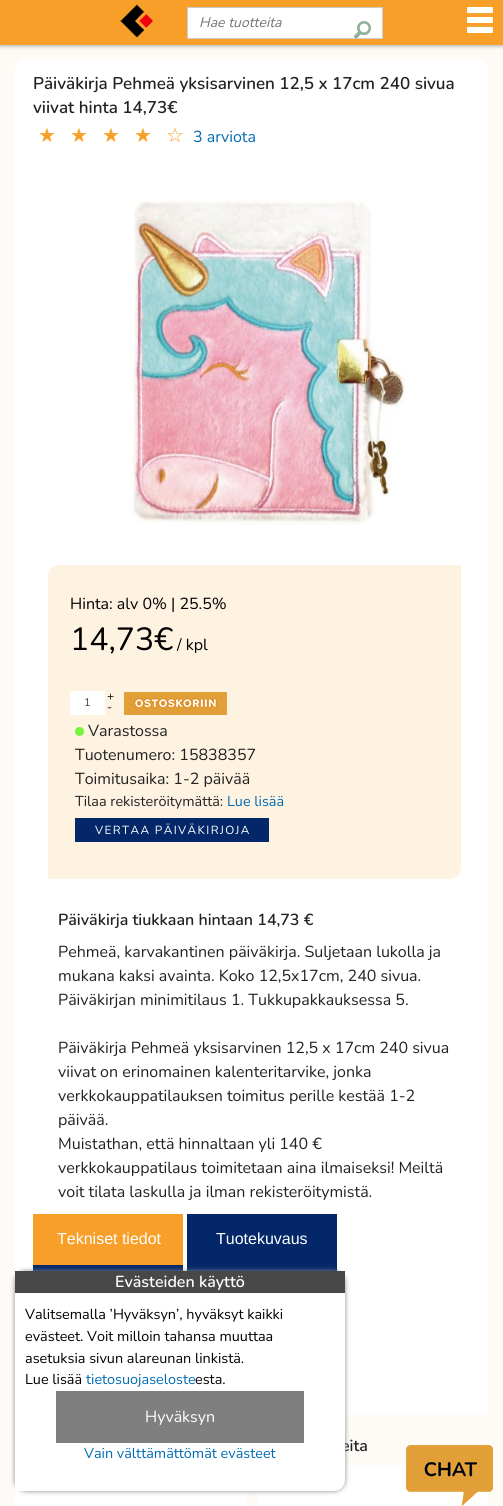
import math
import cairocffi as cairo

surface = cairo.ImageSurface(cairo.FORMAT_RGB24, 503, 1506)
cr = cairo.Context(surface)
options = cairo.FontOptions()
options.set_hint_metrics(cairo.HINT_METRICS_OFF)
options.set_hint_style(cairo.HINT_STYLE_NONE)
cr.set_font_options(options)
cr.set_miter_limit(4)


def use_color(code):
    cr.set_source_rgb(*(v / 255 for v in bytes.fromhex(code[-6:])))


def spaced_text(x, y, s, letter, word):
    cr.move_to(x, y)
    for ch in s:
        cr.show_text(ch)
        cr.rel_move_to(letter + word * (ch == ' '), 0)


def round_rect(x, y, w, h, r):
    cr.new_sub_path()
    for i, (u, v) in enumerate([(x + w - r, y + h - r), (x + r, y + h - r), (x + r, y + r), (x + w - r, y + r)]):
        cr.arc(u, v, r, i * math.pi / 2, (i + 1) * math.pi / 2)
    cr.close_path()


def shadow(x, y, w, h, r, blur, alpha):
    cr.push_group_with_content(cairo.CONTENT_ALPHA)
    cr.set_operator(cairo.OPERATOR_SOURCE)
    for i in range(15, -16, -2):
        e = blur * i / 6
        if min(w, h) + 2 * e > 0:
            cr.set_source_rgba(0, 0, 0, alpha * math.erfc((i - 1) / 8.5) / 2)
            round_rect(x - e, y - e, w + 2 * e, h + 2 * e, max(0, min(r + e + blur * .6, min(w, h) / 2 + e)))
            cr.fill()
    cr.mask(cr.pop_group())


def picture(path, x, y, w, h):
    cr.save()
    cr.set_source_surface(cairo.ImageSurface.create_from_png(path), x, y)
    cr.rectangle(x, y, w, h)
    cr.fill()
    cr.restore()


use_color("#fefbf7")
cr.paint()
use_color("#888888")
shadow(0, 0, 503, 45, 0, 2.5, 1)
use_color("#f79f28")
cr.rectangle(0, 0, 503, 45)
cr.fill()
picture("img1.png", 120, 4, 33, 33)
use_color("#ffffff")
cr.rectangle(187.5, 7.5, 195, 31)
cr.fill_preserve()
use_color("#cccccc")
cr.set_line_width(1)
cr.stroke()
cr.select_font_face("Nunito", cairo.FONT_SLANT_ITALIC)
cr.set_font_size(14)
use_color("#757575")
cr.move_to(199, 27)
cr.show_text("Hae tuotteita")
picture("img2.png", 354, 21, 17, 18)
picture("img3.png", 467, 7, 26, 26)
use_color("#ffffff")
cr.new_path()
cr.move_to(25, 60)
cr.line_to(478, 60)
cr.curve_to(483.5, 60, 488, 64.5, 488, 70)
cr.line_to(488, 1415)
cr.line_to(15, 1415)
cr.line_to(15, 70)
cr.curve_to(15, 64.5, 19.5, 60, 25, 60)
cr.close_path()
cr.fill()
cr.select_font_face("Nunito SemiBold")
cr.set_font_size(17)
use_color("#222222")
cr.move_to(33, 89)
cr.show_text("Päiväkirja Pehmeä yksisarvinen 12,5 x 17cm 240 sivua")
cr.move_to(33, 113)
cr.show_text("viivat hinta 14,73€")
cr.select_font_face("DejaVu Sans")
cr.set_font_size(20)
use_color("#f79f28")
cr.move_to(38, 142)
cr.show_text("★")
cr.move_to(70, 142)
cr.show_text("★")
cr.move_to(102, 142)
cr.show_text("★")
cr.move_to(134, 142)
cr.show_text("★")
cr.move_to(166, 142)
cr.show_text("☆")
cr.select_font_face("Nunito")
cr.set_font_size(16)
use_color("#006bb2")
cr.move_to(193, 142)
cr.show_text("3 arviota")
picture("img4.png", 129, 200, 276, 325)
use_color("#fef2e1")
cr.new_path()
cr.move_to(59, 565)
cr.line_to(461, 565)
cr.line_to(461, 868)
cr.curve_to(461, 874, 456, 879, 450, 879)
cr.line_to(48, 879)
cr.line_to(48, 576)
cr.curve_to(48, 570, 53, 565, 59, 565)
cr.close_path()
cr.fill()
use_color("#000000")
cr.move_to(70, 609)
cr.show_text("Hinta: alv 0% | 25.5%")
cr.set_font_size(32)
cr.move_to(70, 650)
cr.show_text("14,73€")
cr.set_font_size(16)
cr.move_to(177, 650)
cr.show_text("/ kpl")
cr.set_font_size(12)
cr.move_to(107, 700)
cr.show_text("+")
picture("img5.png", 124, 692, 103, 23)
use_color("#ffffff")
cr.rectangle(70, 691, 35, 24)
cr.fill()
cr.set_font_size(11)
use_color("#404040")
cr.move_to(84, 706)
cr.show_text("1")
cr.set_font_size(12)
use_color("#000000")
cr.move_to(107, 711)
cr.show_text("-")
use_color("#75f53c")
cr.new_path()
cr.arc(79.5, 731.5, 4.5, 0, 2 * math.pi)
cr.fill()
cr.set_font_size(16)
use_color("#222222")
cr.move_to(88, 736)
cr.show_text("Varastossa")
cr.move_to(75, 760)
cr.show_text("Tuotenumero: 15838357")
cr.move_to(75, 784)
cr.show_text("Toimitusaika: 1-2 päivää")
cr.set_font_size(14.4)
cr.move_to(75, 806)
cr.show_text("Tilaa rekisteröitymättä:")
use_color("#006bb2")
cr.move_to(227, 806)
cr.show_text("Lue lisää")
use_color("#032769")
cr.rectangle(75, 818, 194, 24)
cr.fill()
cr.set_font_size(11.75)
use_color("#ffffff")
spaced_text(95, 834, "VERTAA PÄIVÄKIRJOJA", 1.4, 0)
cr.select_font_face("Nunito SemiBold")
cr.set_font_size(16)
use_color("#222222")
cr.move_to(58, 925)
cr.show_text("Päiväkirja tiukkaan hintaan 14,73 €")
cr.select_font_face("Nunito")
cr.move_to(58, 957)
cr.show_text("Pehmeä, karvakantinen päiväkirja. Suljetaan lukolla ja")
cr.move_to(58, 981)
cr.show_text("mukana kaksi avainta. Koko 12,5x17cm, 240 sivua.")
cr.move_to(58, 1005)
cr.show_text("Päiväkirjan minimitilaus 1. Tukkupakkauksessa 5.")
cr.move_to(58, 1053)
cr.show_text("Päiväkirja Pehmeä yksisarvinen 12,5 x 17cm 240 sivua")
cr.move_to(58, 1077)
cr.show_text("viivat on erinomainen kalenteritarvike, jonka")
cr.move_to(58, 1101)
cr.show_text("verkkokauppatilauksen toimitus perille kestää 1-2")
cr.move_to(58, 1125)
cr.show_text("päivää.")
cr.move_to(58, 1149)
cr.show_text("Muistathan, että hinnaltaan yli 140 €")
cr.move_to(58, 1173)
cr.show_text("verkkokauppatilaus toimitetaan aina ilmaiseksi! Meiltä")
cr.move_to(58, 1197)
cr.show_text("voit tilata laskulla ja ilman rekisteröitymistä.")
use_color("#f79f28")
cr.rectangle(33, 1214, 150, 51)
cr.fill()
cr.select_font_face("Liberation Sans")
use_color("#ffffff")
cr.move_to(57, 1244)
cr.show_text("Tekniset tiedot")
use_color("#032769")
cr.rectangle(187, 1214, 150, 57)
cr.fill()
use_color("#ffffff")
cr.move_to(216, 1244)
cr.show_text("Tuotekuvaus")
use_color("#032769")
cr.rectangle(33, 1265, 150, 6)
cr.fill()
cr.select_font_face("Nunito SemiBold")
use_color("#222222")
cr.move_to(341, 1451)
cr.show_text("eita")
use_color("#ffffff")
cr.rectangle(15, 1491, 232, 15)
cr.fill()
cr.rectangle(257, 1465, 231, 41)
cr.fill()
use_color("#888888")
shadow(15, 1271, 330, 220, 11, 2.5, 1)
use_color("#ffffff")
cr.new_path()
cr.move_to(26, 1271)
cr.line_to(345, 1271)
cr.line_to(345, 1480)
cr.curve_to(345, 1486, 340, 1491, 334, 1491)
cr.line_to(15, 1491)
cr.line_to(15, 1282)
cr.curve_to(15, 1276, 20, 1271, 26, 1271)
cr.close_path()
cr.fill()
use_color("#484848")
cr.rectangle(15, 1271, 330, 22)
cr.fill()
use_color("#ffffff")
cr.move_to(115, 1287)
cr.show_text("Evästeiden käyttö")
cr.select_font_face("Nunito")
cr.set_font_size(14.4)
use_color("#000000")
cr.move_to(25, 1319)
cr.show_text("Valitsemalla ’Hyväksyn’, hyväksyt kaikki")
cr.move_to(25, 1341)
cr.show_text("evästeet. Voit milloin tahansa muuttaa")
cr.move_to(25, 1363)
cr.show_text("asetuksia sivun alareunan linkistä.")
cr.move_to(25, 1384)
cr.show_text("Lue lisää")
use_color("#006bb2")
cr.move_to(86, 1384)
cr.show_text("tietosuojaseloste")
use_color("#000000")
cr.move_to(195, 1384)
cr.show_text("esta.")
use_color("#7f7f7f")
cr.rectangle(56, 1391, 248, 52)
cr.fill()
cr.set_font_size(16)
use_color("#ffffff")
cr.move_to(145, 1422)
cr.show_text("Hyväksyn")
cr.set_font_size(14.4)
use_color("#006bb2")
cr.move_to(84, 1458)
cr.show_text("Vain välttämättömät evästeet")
picture("img6.png", 406, 1445, 87, 61)
surface.write_to_png("result.png")
